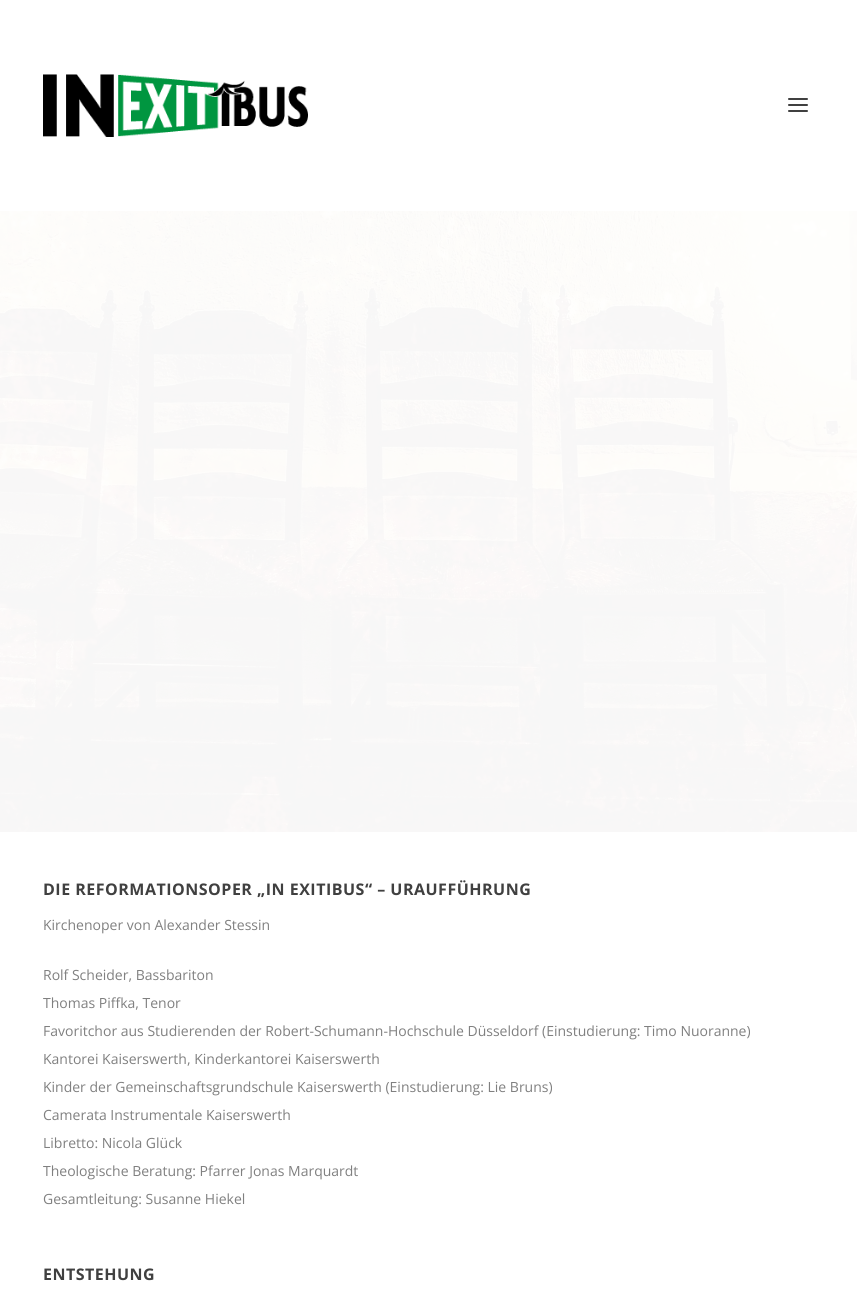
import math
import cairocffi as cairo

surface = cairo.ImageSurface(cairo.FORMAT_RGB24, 857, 1311)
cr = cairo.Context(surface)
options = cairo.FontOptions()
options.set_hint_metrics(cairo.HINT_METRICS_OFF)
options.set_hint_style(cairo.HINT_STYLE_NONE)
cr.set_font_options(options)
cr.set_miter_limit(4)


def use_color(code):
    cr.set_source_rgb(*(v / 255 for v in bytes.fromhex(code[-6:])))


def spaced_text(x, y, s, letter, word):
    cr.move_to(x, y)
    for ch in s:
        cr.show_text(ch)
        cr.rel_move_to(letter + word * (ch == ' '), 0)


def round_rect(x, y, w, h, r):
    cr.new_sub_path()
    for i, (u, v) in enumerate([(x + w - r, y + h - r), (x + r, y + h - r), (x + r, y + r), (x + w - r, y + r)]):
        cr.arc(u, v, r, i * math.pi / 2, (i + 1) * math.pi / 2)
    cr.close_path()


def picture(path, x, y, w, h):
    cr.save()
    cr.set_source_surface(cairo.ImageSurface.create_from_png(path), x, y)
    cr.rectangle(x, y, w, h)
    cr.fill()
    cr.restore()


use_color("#ffffff")
cr.paint()
picture("img1.png", 43, 74, 265, 63)
use_color("#404040")
round_rect(788, 98, 20, 2, 1)
cr.fill()
round_rect(788, 104, 20, 2, 1)
cr.fill()
round_rect(788, 110, 20, 2, 1)
cr.fill()
picture("img2.png", 0, 211, 857, 621)
cr.select_font_face("Open Sans", cairo.FONT_SLANT_NORMAL, cairo.FONT_WEIGHT_BOLD)
cr.set_font_size(16)
spaced_text(43, 895, "DIE REFORMATIONSOPER „IN EXITIBUS“ – URAUFFÜHRUNG", 0.5, 0)
cr.select_font_face("Open Sans")
cr.set_font_size(14)
use_color("#808080")
cr.move_to(43, 930)
cr.show_text("Kirchenoper von Alexander Stessin")
cr.move_to(43, 980)
cr.show_text("Rolf Scheider, Bassbariton")
cr.move_to(43, 1008)
cr.show_text("Thomas Piffka, Tenor")
cr.move_to(43, 1036)
cr.show_text("Favoritchor aus Studierenden der Robert-Schumann-Hochschule Düsseldorf (Einstudierung: Timo Nuoranne)")
cr.move_to(43, 1064)
cr.show_text("Kantorei Kaiserswerth, Kinderkantorei Kaiserswerth")
cr.move_to(43, 1092)
cr.show_text("Kinder der Gemeinschaftsgrundschule Kaiserswerth (Einstudierung: Lie Bruns)")
cr.move_to(43, 1120)
cr.show_text("Camerata Instrumentale Kaiserswerth")
cr.move_to(43, 1148)
cr.show_text("Libretto: Nicola Glück")
cr.move_to(43, 1176)
cr.show_text("Theologische Beratung: Pfarrer Jonas Marquardt")
cr.move_to(43, 1204)
cr.show_text("Gesamtleitung: Susanne Hiekel")
cr.select_font_face("Open Sans", cairo.FONT_SLANT_NORMAL, cairo.FONT_WEIGHT_BOLD)
cr.set_font_size(16)
use_color("#404040")
spaced_text(43, 1280, "ENTSTEHUNG", 0.5, 0)
surface.write_to_png("result.png")
